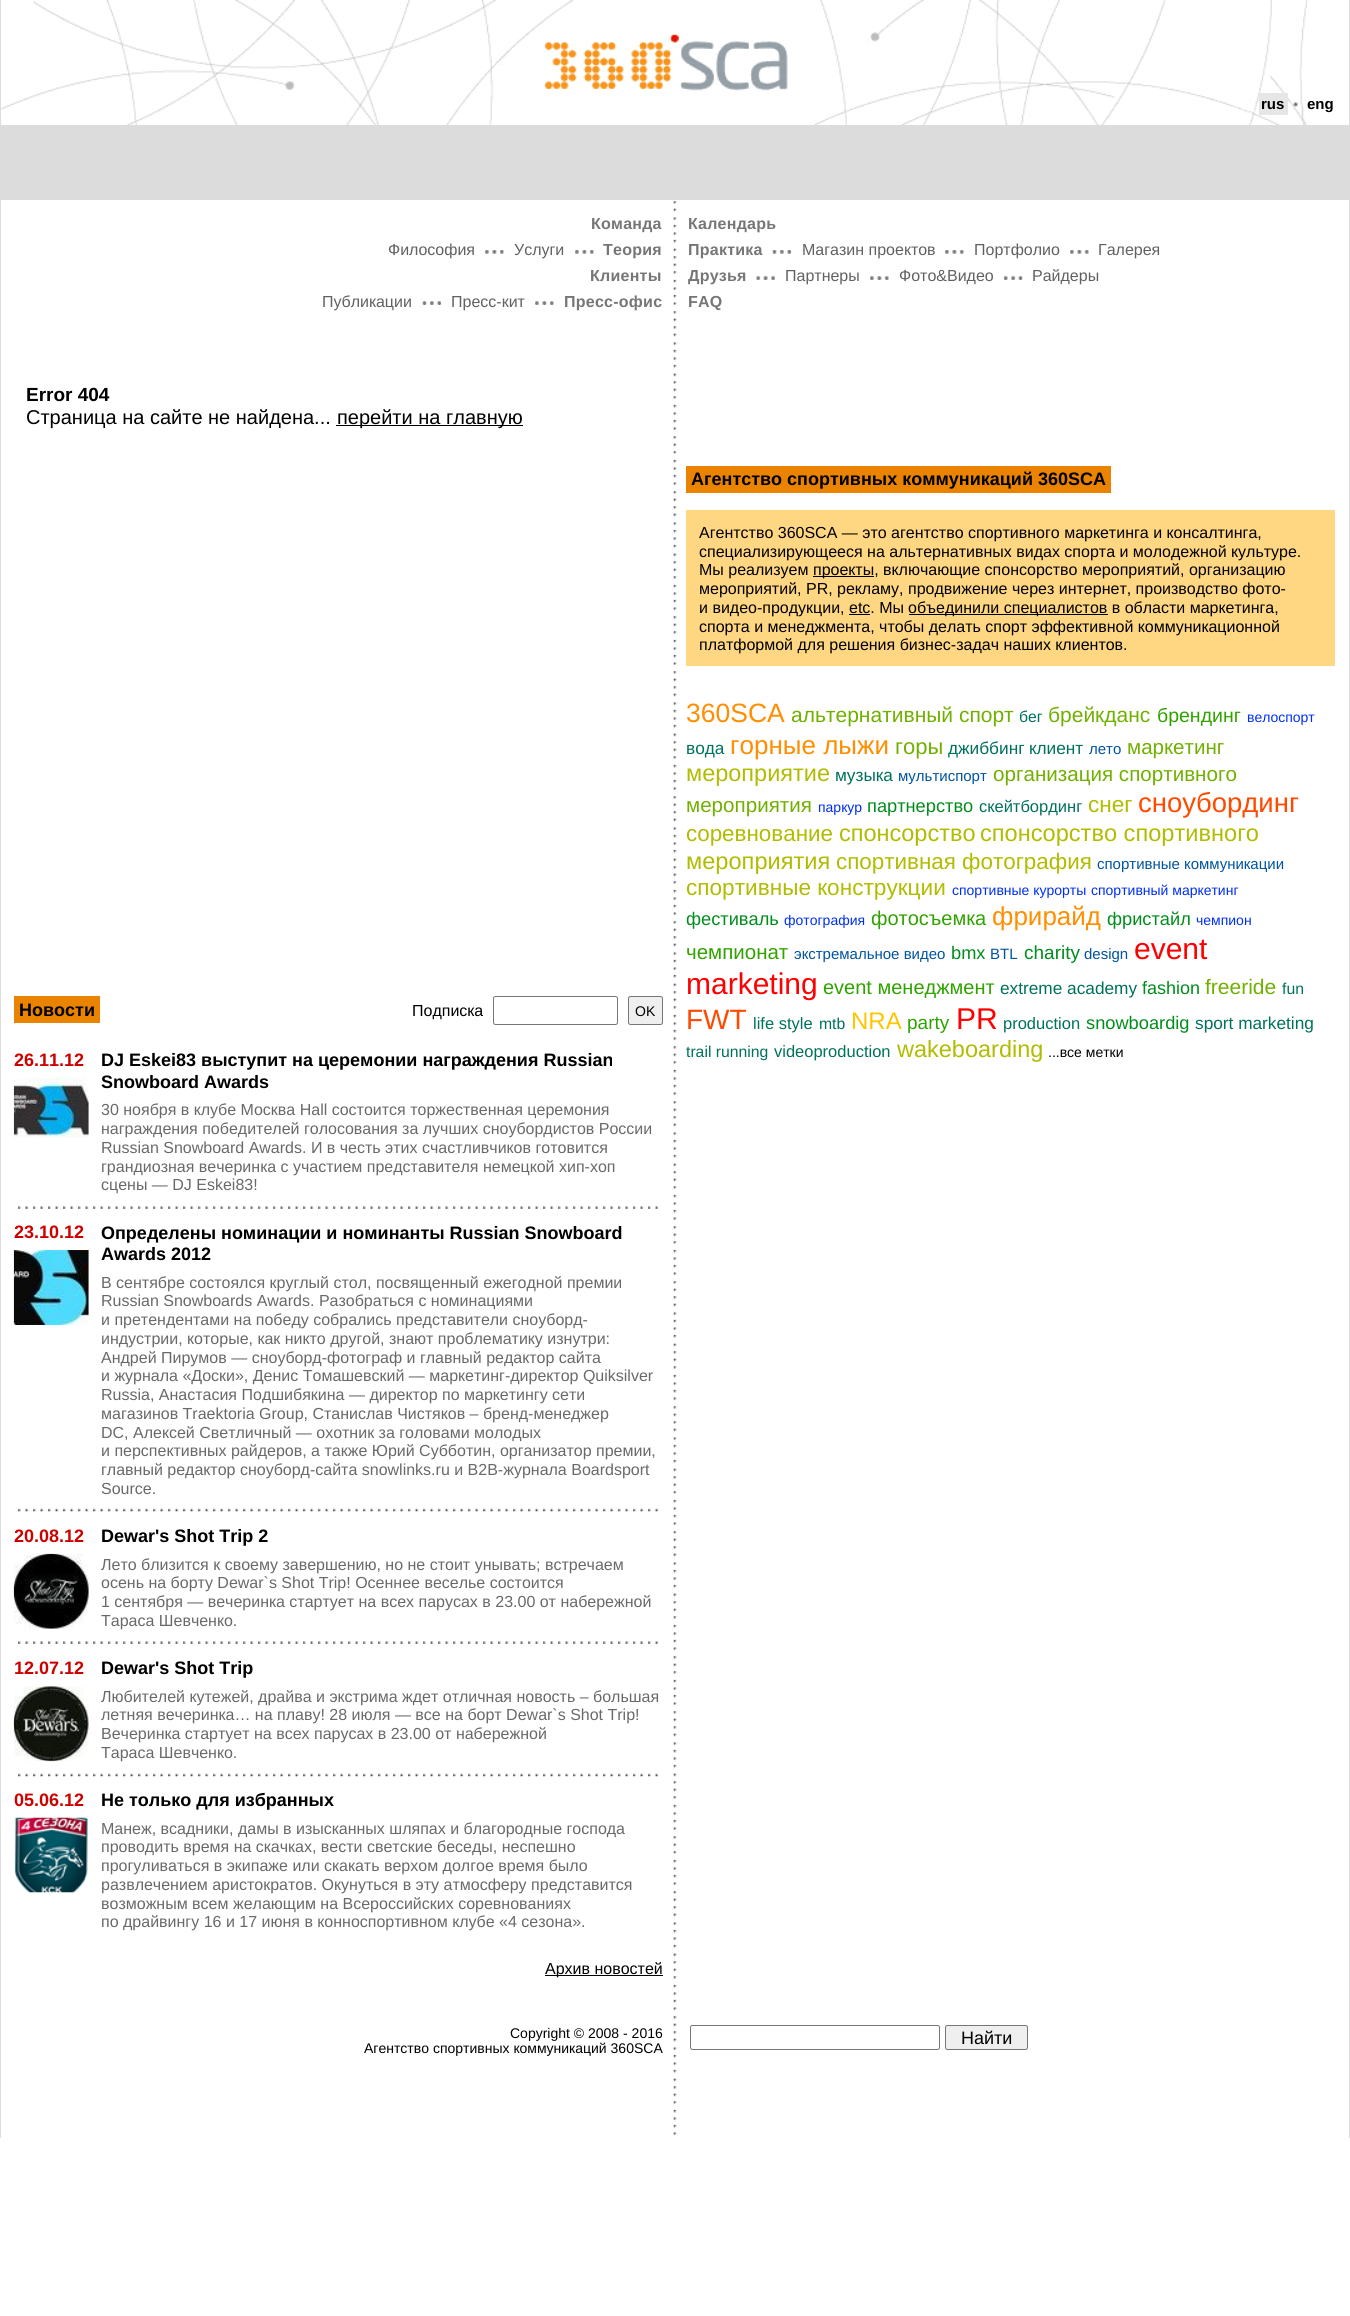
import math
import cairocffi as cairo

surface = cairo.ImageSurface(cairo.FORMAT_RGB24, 1350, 2316)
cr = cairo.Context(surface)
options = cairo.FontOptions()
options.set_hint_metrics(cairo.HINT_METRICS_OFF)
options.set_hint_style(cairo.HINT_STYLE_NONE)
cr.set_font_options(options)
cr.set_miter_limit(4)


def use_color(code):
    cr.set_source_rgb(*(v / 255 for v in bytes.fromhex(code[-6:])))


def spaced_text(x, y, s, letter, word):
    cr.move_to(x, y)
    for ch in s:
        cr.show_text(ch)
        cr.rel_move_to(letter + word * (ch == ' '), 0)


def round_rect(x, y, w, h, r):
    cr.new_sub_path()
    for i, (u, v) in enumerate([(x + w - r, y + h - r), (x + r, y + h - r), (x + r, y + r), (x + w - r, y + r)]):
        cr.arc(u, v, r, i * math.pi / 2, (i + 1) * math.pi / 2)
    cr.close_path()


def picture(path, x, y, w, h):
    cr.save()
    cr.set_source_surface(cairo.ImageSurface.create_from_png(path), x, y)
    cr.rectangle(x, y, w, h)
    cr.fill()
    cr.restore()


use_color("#ffffff")
cr.paint()
use_color("#dcdcdc")
cr.rectangle(1349, 0, 1, 2138)
cr.fill()
cr.rectangle(0, 0, 1, 2138)
cr.fill()
picture("img1.png", 673, 200, 4, 1936)
picture("img2.png", 1, 0, 1307, 125)
picture("img3.png", 544, 33, 244, 58)
use_color("#e6e6e6")
cr.rectangle(1259, 93, 29, 22)
cr.fill()
cr.select_font_face("Liberation Sans", cairo.FONT_SLANT_NORMAL, cairo.FONT_WEIGHT_BOLD)
cr.set_font_size(15)
use_color("#000000")
cr.move_to(1261, 109)
cr.show_text("rus")
picture("img4.png", 1293, 102, 5, 5)
cr.move_to(1307, 109)
cr.show_text("eng")
use_color("#dcdcdc")
cr.rectangle(1, 125, 1348, 75)
cr.fill()
cr.set_font_size(16)
use_color("#767676")
spaced_text(591, 229, "Команда", 0.25, 0)
cr.select_font_face("Liberation Sans")
use_color("#616161")
cr.move_to(388, 255)
cr.show_text("Философия")
picture("img5.png", 485, 250, 19, 4)
cr.move_to(514, 255)
cr.show_text("Услуги")
picture("img6.png", 575, 250, 19, 4)
cr.select_font_face("Liberation Sans", cairo.FONT_SLANT_NORMAL, cairo.FONT_WEIGHT_BOLD)
use_color("#767676")
spaced_text(603, 255, "Теория", 0.25, 0)
spaced_text(590, 281, "Клиенты", 0.25, 0)
cr.select_font_face("Liberation Sans")
use_color("#616161")
cr.move_to(322, 307)
cr.show_text("Публикации")
picture("img7.png", 422, 301, 20, 4)
cr.move_to(451, 307)
cr.show_text("Пресс-кит")
picture("img8.png", 535, 301, 19, 4)
cr.select_font_face("Liberation Sans", cairo.FONT_SLANT_NORMAL, cairo.FONT_WEIGHT_BOLD)
use_color("#767676")
spaced_text(564, 307, "Пресс-офис", 0.25, 0)
cr.set_font_size(19)
use_color("#000000")
cr.move_to(26, 401)
cr.show_text("Error 404")
cr.select_font_face("Liberation Sans")
cr.set_font_size(20)
cr.move_to(26, 424)
cr.show_text("Страница на сайте не найдена...")
cr.rectangle(336, 425, 187, 1)
cr.fill()
cr.move_to(337, 424)
cr.show_text("перейти на главную")
use_color("#e98300")
cr.rectangle(14, 996, 86, 27)
cr.fill()
cr.select_font_face("Liberation Sans", cairo.FONT_SLANT_NORMAL, cairo.FONT_WEIGHT_BOLD)
cr.set_font_size(18)
use_color("#000000")
cr.move_to(19, 1016)
cr.show_text("Новости")
cr.select_font_face("Liberation Sans")
cr.set_font_size(16)
cr.move_to(412, 1016)
cr.show_text("Подписка")
round_rect(493.5, 996.5, 124, 28, 2)
use_color("#767676")
cr.set_line_width(1)
cr.stroke()
use_color("#efefef")
round_rect(628.5, 996.5, 34, 28, 2)
cr.fill_preserve()
use_color("#767676")
cr.stroke()
cr.set_font_size(14)
use_color("#000000")
cr.move_to(635, 1016)
cr.show_text("OK")
picture("img9.png", 18, 1206, 641, 3)
cr.select_font_face("Liberation Sans", cairo.FONT_SLANT_NORMAL, cairo.FONT_WEIGHT_BOLD)
cr.set_font_size(18)
use_color("#cc0200")
cr.move_to(14, 1066)
cr.show_text("26.11.12")
use_color("#000000")
cr.move_to(101, 1066)
cr.show_text("DJ Eskei83 выступит на церемонии награждения Russian")
cr.move_to(101, 1088)
cr.show_text("Snowboard Awards")
cr.select_font_face("Liberation Sans")
cr.set_font_size(16)
use_color("#696969")
cr.move_to(101, 1115)
cr.show_text("30 ноября в клубе Москва Hall состоится торжественная церемония")
cr.move_to(101, 1134)
cr.show_text("награждения победителей голосования за лучших сноубордистов России")
cr.move_to(101, 1153)
cr.show_text("Russian Snowboard Awards. И в честь этих счастливчиков готовится")
cr.move_to(101, 1172)
cr.show_text("грандиозная вечеринка с участием представителя немецкой хип-хоп")
cr.move_to(101, 1190)
cr.show_text("сцены — DJ Eskei83!")
picture("img10.png", 13, 1077, 76, 61)
picture("img11.png", 18, 1508, 641, 4)
cr.select_font_face("Liberation Sans", cairo.FONT_SLANT_NORMAL, cairo.FONT_WEIGHT_BOLD)
cr.set_font_size(18)
use_color("#cc0200")
cr.move_to(14, 1238)
cr.show_text("23.10.12")
use_color("#000000")
cr.move_to(101, 1239)
cr.show_text("Определены номинации и номинанты Russian Snowboard")
cr.move_to(101, 1260)
cr.show_text("Awards 2012")
cr.select_font_face("Liberation Sans")
cr.set_font_size(16)
use_color("#696969")
cr.move_to(101, 1288)
cr.show_text("В сентябре состоялся круглый стол, посвященный ежегодной премии")
cr.move_to(101, 1306)
cr.show_text("Russian Snowboards Awards. Разобраться с номинациями")
cr.move_to(101, 1325)
cr.show_text("и претендентами на победу собрались представители сноуборд-")
cr.move_to(101, 1344)
cr.show_text("индустрии, которые, как никто другой, знают проблематику изнутри:")
cr.move_to(101, 1363)
cr.show_text("Андрей Пирумов — сноуборд-фотограф и главный редактор сайта")
cr.move_to(101, 1381)
cr.show_text("и журнала «Доски», Денис Томашевский — маркетинг-директор Quiksilver")
cr.move_to(101, 1400)
cr.show_text("Russia, Анастасия Подшибякина — директор по маркетингу сети")
cr.move_to(101, 1419)
cr.show_text("магазинов Traektoria Group, Станислав Чистяков – бренд-менеджер")
cr.move_to(101, 1438)
cr.show_text("DC, Алексей Светличный — охотник за головами молодых")
cr.move_to(101, 1456)
cr.show_text("и перспективных райдеров, а также Юрий Субботин, организатор премии,")
cr.move_to(101, 1475)
cr.show_text("главный редактор сноуборд-сайта snowlinks.ru и B2B-журнала Boardsport")
cr.move_to(101, 1494)
cr.show_text("Source.")
picture("img12.png", 13, 1250, 76, 75)
picture("img13.png", 18, 1641, 641, 3)
cr.select_font_face("Liberation Sans", cairo.FONT_SLANT_NORMAL, cairo.FONT_WEIGHT_BOLD)
cr.set_font_size(18)
use_color("#cc0200")
cr.move_to(14, 1542)
cr.show_text("20.08.12")
use_color("#000000")
cr.move_to(101, 1542)
cr.show_text("Dewar's Shot Trip 2")
cr.select_font_face("Liberation Sans")
cr.set_font_size(16)
use_color("#696969")
cr.move_to(101, 1570)
cr.show_text("Лето близится к своему завершению, но не стоит унывать; встречаем")
cr.move_to(101, 1588)
cr.show_text("осень на борту Dewar`s Shot Trip! Осеннее веселье состоится")
cr.move_to(101, 1607)
cr.show_text("1 сентября — вечеринка стартует на всех парусах в 23.00 от набережной")
cr.move_to(101, 1626)
cr.show_text("Тараса Шевченко.")
picture("img14.png", 13, 1553, 76, 76)
picture("img11.png", 18, 1773, 641, 4)
cr.select_font_face("Liberation Sans", cairo.FONT_SLANT_NORMAL, cairo.FONT_WEIGHT_BOLD)
cr.set_font_size(18)
use_color("#cc0200")
cr.move_to(14, 1674)
cr.show_text("12.07.12")
use_color("#000000")
cr.move_to(101, 1674)
cr.show_text("Dewar's Shot Trip")
cr.select_font_face("Liberation Sans")
cr.set_font_size(16)
use_color("#696969")
cr.move_to(101, 1702)
cr.show_text("Любителей кутежей, драйва и экстрима ждет отличная новость – большая")
cr.move_to(101, 1720)
cr.show_text("летняя вечеринка… на плаву! 28 июля — все на борт Dewar`s Shot Trip!")
cr.move_to(101, 1739)
cr.show_text("Вечеринка стартует на всех парусах в 23.00 от набережной")
cr.move_to(101, 1758)
cr.show_text("Тараса Шевченко.")
picture("img15.png", 13, 1686, 76, 76)
cr.select_font_face("Liberation Sans", cairo.FONT_SLANT_NORMAL, cairo.FONT_WEIGHT_BOLD)
cr.set_font_size(18)
use_color("#cc0200")
cr.move_to(14, 1806)
cr.show_text("05.06.12")
use_color("#000000")
cr.move_to(101, 1806)
cr.show_text("Не только для избранных")
cr.select_font_face("Liberation Sans")
cr.set_font_size(16)
use_color("#696969")
cr.move_to(101, 1834)
cr.show_text("Манеж, всадники, дамы в изысканных шляпах и благородные господа")
cr.move_to(101, 1852)
cr.show_text("проводить время на скачках, вести светские беседы, неспешно")
cr.move_to(101, 1871)
cr.show_text("прогуливаться в экипаже или скакать верхом долгое время было")
cr.move_to(101, 1890)
cr.show_text("развлечением аристократов. Окунуться в эту атмосферу представится")
cr.move_to(101, 1909)
cr.show_text("возможным всем желающим на Всероссийских соревнованиях")
cr.move_to(101, 1927)
cr.show_text("по драйвингу 16 и 17 июня в конноспортивном клубе «4 сезона».")
picture("img16.png", 14, 1817, 74, 76)
use_color("#000000")
cr.rectangle(545, 1975, 118, 1)
cr.fill()
cr.move_to(545, 1974)
cr.show_text("Архив новостей")
cr.select_font_face("Liberation Sans", cairo.FONT_SLANT_NORMAL, cairo.FONT_WEIGHT_BOLD)
use_color("#767676")
spaced_text(688, 229, "Календарь", 0.25, 0)
spaced_text(688, 255, "Практика", 0.25, 0)
picture("img17.png", 772, 250, 20, 4)
cr.select_font_face("Liberation Sans")
use_color("#616161")
cr.move_to(802, 255)
cr.show_text("Магазин проектов")
picture("img6.png", 945, 250, 19, 4)
cr.move_to(974, 255)
cr.show_text("Портфолио")
picture("img18.png", 1070, 250, 19, 4)
cr.move_to(1098, 255)
cr.show_text("Галерея")
cr.select_font_face("Liberation Sans", cairo.FONT_SLANT_NORMAL, cairo.FONT_WEIGHT_BOLD)
use_color("#767676")
spaced_text(688, 281, "Друзья", 0.25, 0)
picture("img19.png", 756, 276, 19, 4)
cr.select_font_face("Liberation Sans")
use_color("#616161")
cr.move_to(785, 281)
cr.show_text("Партнеры")
picture("img20.png", 870, 276, 19, 4)
cr.move_to(899, 281)
cr.show_text("Фото&Видео")
picture("img21.png", 1003, 276, 20, 4)
cr.move_to(1032, 281)
cr.show_text("Райдеры")
cr.select_font_face("Liberation Sans", cairo.FONT_SLANT_NORMAL, cairo.FONT_WEIGHT_BOLD)
use_color("#767676")
spaced_text(688, 307, "FAQ", 0.25, 0)
use_color("#e98300")
cr.rectangle(686, 466, 425, 27)
cr.fill()
cr.set_font_size(18)
use_color("#000000")
cr.move_to(691, 485)
cr.show_text("Агентство спортивных коммуникаций 360SCA")
use_color("#ffd782")
cr.rectangle(686, 510, 649, 156)
cr.fill()
cr.select_font_face("Liberation Sans")
cr.set_font_size(16)
use_color("#000000")
cr.move_to(699, 538)
cr.show_text("Агентство 360SCA — это агентство спортивного маркетинга и консалтинга,")
cr.move_to(699, 557)
cr.show_text("специализирующееся на альтернативных видах спорта и молодежной культуре.")
cr.move_to(699, 575)
cr.show_text("Мы реализуем")
cr.rectangle(813, 576, 61, 1)
cr.fill()
cr.move_to(813, 575)
cr.show_text("проекты, включающие спонсорство мероприятий, организацию")
cr.move_to(699, 594)
cr.show_text("мероприятий, PR, рекламу, продвижение через интернет, производство фото-")
cr.move_to(699, 613)
cr.show_text("и видео-продукции, etc. Мы")
cr.rectangle(909, 614, 199, 1)
cr.fill()
cr.move_to(908, 613)
cr.show_text("объединили специалистов в области маркетинга,")
cr.rectangle(849, 614, 21, 1)
cr.fill()
cr.move_to(699, 632)
cr.show_text("спорта и менеджмента, чтобы делать спорт эффективной коммуникационной")
cr.move_to(699, 650)
cr.show_text("платформой для решения бизнес-задач наших клиентов.")
cr.set_font_size(26.5)
use_color("#ff8e00")
cr.move_to(686, 722)
cr.show_text("360SCA")
cr.set_font_size(21)
use_color("#71b000")
cr.move_to(791, 722)
cr.show_text("альтернативный спорт")
cr.set_font_size(15.75)
use_color("#00715d")
cr.move_to(1019, 722)
cr.show_text("бег")
cr.set_font_size(21)
use_color("#71b000")
cr.move_to(1048, 722)
cr.show_text("брейкданс")
cr.set_font_size(19.5)
use_color("#30a300")
cr.move_to(1157, 722)
cr.show_text("брендинг")
cr.set_font_size(14)
use_color("#002ff3")
cr.move_to(1247, 722)
cr.show_text("велоспорт")
cr.set_font_size(17.25)
use_color("#00715d")
cr.move_to(686, 754)
cr.show_text("вода")
cr.set_font_size(26)
use_color("#ff8e00")
cr.move_to(730, 754)
cr.show_text("горные лыжи")
cr.set_font_size(22)
use_color("#71b000")
cr.move_to(895, 754)
cr.show_text("горы")
cr.set_font_size(17.25)
use_color("#00715d")
cr.move_to(948, 754)
cr.show_text("джиббинг")
cr.move_to(1029, 754)
cr.show_text("клиент")
cr.set_font_size(15)
use_color("#00549e")
cr.move_to(1089, 754)
cr.show_text("лето")
cr.set_font_size(20.6)
use_color("#71b000")
cr.move_to(1127, 754)
cr.show_text("маркетинг")
cr.set_font_size(23.5)
use_color("#b1bc00")
cr.move_to(686, 781)
cr.show_text("мероприятие")
cr.set_font_size(17.25)
use_color("#00715d")
cr.move_to(835, 781)
cr.show_text("музыка")
cr.set_font_size(15)
use_color("#00549e")
cr.move_to(898, 781)
cr.show_text("мультиспорт")
cr.set_font_size(20.6)
use_color("#71b000")
cr.move_to(993, 781)
cr.show_text("организация спортивного")
cr.move_to(686, 812)
cr.show_text("мероприятия")
cr.set_font_size(14)
use_color("#002ff3")
cr.move_to(818, 812)
cr.show_text("паркур")
cr.set_font_size(18.25)
use_color("#008d1c")
cr.move_to(867, 812)
cr.show_text("партнерство")
cr.set_font_size(16.5)
use_color("#00715d")
cr.move_to(979, 812)
cr.show_text("скейтбординг")
cr.set_font_size(22.6)
use_color("#b1bc00")
cr.move_to(1088, 812)
cr.show_text("снег")
cr.set_font_size(27.5)
use_color("#ff4a00")
cr.move_to(1138, 812)
cr.show_text("сноубординг")
cr.set_font_size(22.4)
use_color("#b1bc00")
cr.move_to(686, 841)
cr.show_text("соревнование")
cr.set_font_size(23.5)
cr.move_to(839, 841)
cr.show_text("спонсорство")
cr.set_font_size(23.6)
cr.move_to(980, 841)
cr.show_text("спонсорство спортивного")
cr.move_to(686, 869)
cr.show_text("мероприятия")
cr.set_font_size(22.4)
cr.move_to(836, 869)
cr.show_text("спортивная фотография")
cr.set_font_size(15)
use_color("#00549e")
cr.move_to(1097, 869)
cr.show_text("спортивные коммуникации")
cr.set_font_size(22.6)
use_color("#b1bc00")
cr.move_to(686, 895)
cr.show_text("спортивные конструкции")
cr.set_font_size(14)
use_color("#002ff3")
cr.move_to(952, 895)
cr.show_text("спортивные курорты")
cr.move_to(1091, 895)
cr.show_text("спортивный маркетинг")
cr.set_font_size(18.25)
use_color("#008d1c")
cr.move_to(686, 925)
cr.show_text("фестиваль")
cr.set_font_size(14)
use_color("#002ff3")
cr.move_to(784, 925)
cr.show_text("фотография")
cr.set_font_size(20)
use_color("#30a300")
cr.move_to(871, 925)
cr.show_text("фотосъемка")
cr.set_font_size(26)
use_color("#ff8e00")
cr.move_to(992, 925)
cr.show_text("фрирайд")
cr.set_font_size(18.25)
use_color("#008d1c")
cr.move_to(1107, 925)
cr.show_text("фристайл")
cr.set_font_size(14)
use_color("#002ff3")
cr.move_to(1196, 925)
cr.show_text("чемпион")
cr.set_font_size(20.5)
use_color("#30a300")
cr.move_to(686, 959)
cr.show_text("чемпионат")
cr.set_font_size(15)
use_color("#00549e")
cr.move_to(794, 959)
cr.show_text("экстремальное видео")
cr.set_font_size(18.25)
use_color("#008d1c")
cr.move_to(951, 959)
cr.show_text("bmx")
cr.set_font_size(15)
use_color("#00549e")
cr.move_to(990, 959)
cr.show_text("BTL")
cr.set_font_size(19)
use_color("#008d1c")
cr.move_to(1024, 959)
cr.show_text("charity")
cr.set_font_size(15)
use_color("#00549e")
cr.move_to(1084, 959)
cr.show_text("design")
cr.set_font_size(30)
use_color("#ff0000")
cr.move_to(1134, 959)
cr.show_text("event")
cr.move_to(686, 994)
cr.show_text("marketing")
cr.set_font_size(20)
use_color("#30a300")
cr.move_to(823, 994)
cr.show_text("event менеджмент")
cr.set_font_size(17.25)
use_color("#00715d")
cr.move_to(1000, 994)
cr.show_text("extreme academy")
cr.set_font_size(18)
use_color("#008d1c")
cr.move_to(1142, 994)
cr.show_text("fashion")
cr.set_font_size(21)
use_color("#71b000")
cr.move_to(1205, 994)
cr.show_text("freeride")
cr.set_font_size(15.75)
use_color("#00715d")
cr.move_to(1282, 994)
cr.show_text("fun")
cr.set_font_size(28)
use_color("#ff4a00")
cr.move_to(686, 1029)
cr.show_text("FWT")
cr.set_font_size(16.5)
use_color("#00715d")
cr.move_to(753, 1029)
cr.show_text("life style")
cr.set_font_size(15.75)
cr.move_to(819, 1029)
cr.show_text("mtb")
cr.set_font_size(24)
use_color("#ffc500")
cr.move_to(851, 1029)
cr.show_text("NRA")
cr.set_font_size(19)
use_color("#30a300")
cr.move_to(907, 1029)
cr.show_text("party")
cr.set_font_size(30)
use_color("#ff0000")
cr.move_to(956, 1029)
cr.show_text("PR")
cr.set_font_size(16.5)
use_color("#00715d")
cr.move_to(1003, 1029)
cr.show_text("production")
cr.set_font_size(18.25)
use_color("#008d1c")
cr.move_to(1086, 1029)
cr.show_text("snowboardig")
cr.set_font_size(17.25)
use_color("#00715d")
cr.move_to(1195, 1029)
cr.show_text("sport marketing")
cr.set_font_size(15.75)
cr.move_to(686, 1057)
cr.show_text("trail running")
cr.set_font_size(16.5)
cr.move_to(774, 1057)
cr.show_text("videoproduction")
cr.set_font_size(23.5)
use_color("#b1bc00")
cr.move_to(897, 1057)
cr.show_text("wakeboarding")
cr.set_font_size(14)
use_color("#000000")
cr.move_to(1048, 1057)
cr.show_text("...все метки")
cr.move_to(510, 2038)
cr.show_text("Copyright © 2008 - 2016")
cr.move_to(364, 2053)
cr.show_text("Агентство спортивных коммуникаций 360SCA")
round_rect(690.5, 2025.5, 249, 24, 2)
use_color("#767676")
cr.stroke()
use_color("#efefef")
round_rect(945.5, 2025.5, 82, 24, 2)
cr.fill_preserve()
use_color("#767676")
cr.stroke()
cr.set_font_size(18)
use_color("#000000")
cr.move_to(961, 2044)
cr.show_text("Найти")
surface.write_to_png("result.png")
